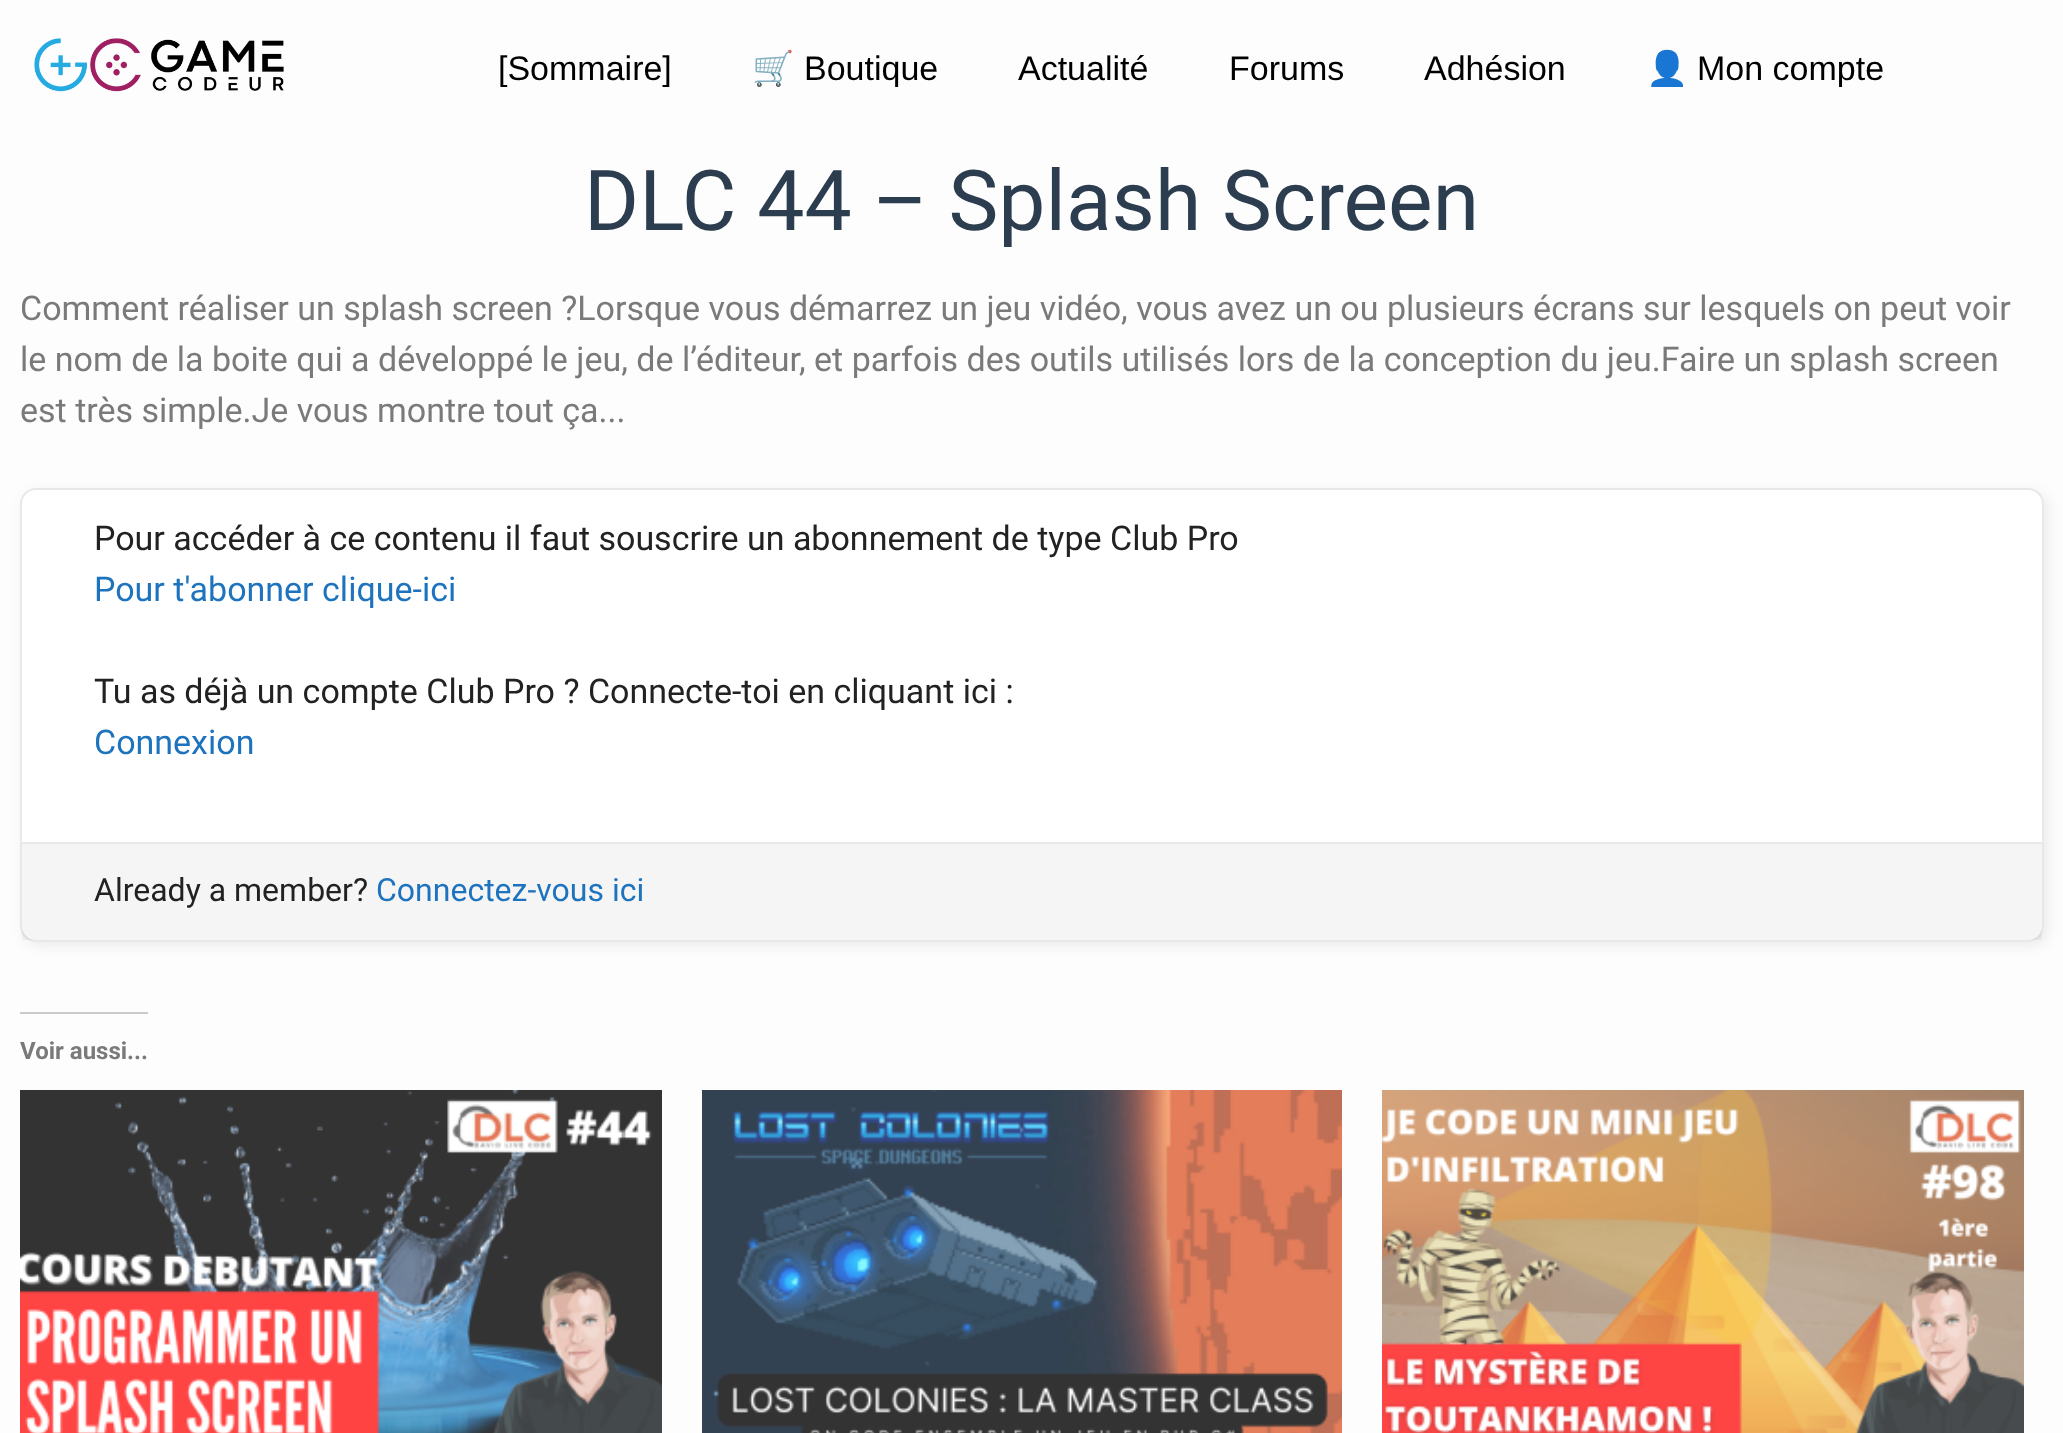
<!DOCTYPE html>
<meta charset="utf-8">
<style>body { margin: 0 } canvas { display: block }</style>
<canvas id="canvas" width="2063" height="1433"></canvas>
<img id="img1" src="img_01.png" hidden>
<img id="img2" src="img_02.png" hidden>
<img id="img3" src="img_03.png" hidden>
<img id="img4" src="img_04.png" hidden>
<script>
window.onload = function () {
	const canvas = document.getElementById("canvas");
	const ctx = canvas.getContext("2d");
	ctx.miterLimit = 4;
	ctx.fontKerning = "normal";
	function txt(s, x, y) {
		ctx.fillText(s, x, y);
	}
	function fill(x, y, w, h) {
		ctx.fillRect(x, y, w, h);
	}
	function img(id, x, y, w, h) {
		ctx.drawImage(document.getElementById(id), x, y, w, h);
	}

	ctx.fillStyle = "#FDFDFD";
	fill(0, 0, 2063, 1433);
	img("img1", 34, 38, 250, 54);
	ctx.fillStyle = "rgba(0, 0, 0, 0.07)";
	ctx.filter = "blur(7px)";
	ctx.beginPath();
	ctx.roundRect(24, 492, 2024, 454, 16);
	ctx.fill();
	ctx.filter = "none";
	ctx.fillStyle = "#FFFFFF";
	ctx.beginPath();
	ctx.roundRect(21, 489, 2022, 452, 15);
	ctx.fill();
	ctx.strokeStyle = "#E8E8E8";
	ctx.lineWidth = 2;
	ctx.stroke();
	ctx.fillStyle = "rgba(0, 0, 0, 0.04)";
	fill(22, 844, 2020, 96);
	ctx.fillStyle = "#E8E8E8";
	fill(22, 842, 2020, 2);
	ctx.fillStyle = "#CACACA";
	fill(20, 1012, 128, 2);
	img("img2", 20, 1090, 642, 343);
	img("img3", 702, 1090, 640, 343);
	img("img4", 1382, 1090, 642, 343);
	ctx.font = "34px Liberation Sans";
	ctx.fillStyle = "#000000";
	txt("[Sommaire]", 498, 80);
	ctx.font = "34px Noto Color Emoji";
	txt("🛒", 752, 80);
	ctx.font = "34px Liberation Sans";
	txt("Boutique", 804, 80);
	txt("Actualité", 1018, 80);
	txt("Forums", 1229, 80);
	txt("Adhésion", 1424, 80);
	ctx.font = "34px Noto Color Emoji";
	txt("👤", 1646, 80);
	ctx.font = "34px Liberation Sans";
	txt("Mon compte", 1697, 80);
	ctx.font = "84px Roboto";
	ctx.fillStyle = "#2C3D50";
	txt("DLC 44 – Splash Screen", 584, 230);
	ctx.font = "34px Roboto";
	ctx.fillStyle = "#7A7A7A";
	txt("Comment réaliser un splash screen ?Lorsque vous démarrez un jeu vidéo, vous avez un ou plusieurs écrans sur lesquels on peut voir", 20, 320);
	txt("le nom de la boite qui a développé le jeu, de l’éditeur, et parfois des outils utilisés lors de la conception du jeu.Faire un splash screen", 20, 371);
	txt("est très simple.Je vous montre tout ça...", 20, 422);
	ctx.fillStyle = "#222222";
	txt("Pour accéder à ce contenu il faut souscrire un abonnement de type Club Pro", 94, 550);
	ctx.fillStyle = "#1E73BE";
	txt("Pour t'abonner clique-ici", 94, 601);
	ctx.fillStyle = "#222222";
	txt("Tu as déjà un compte Club Pro ? Connecte-toi en cliquant ici :", 94, 703);
	ctx.fillStyle = "#1E73BE";
	txt("Connexion", 94, 754);
	ctx.font = "32px Roboto";
	ctx.fillStyle = "#222222";
	txt("Already a member?", 94, 901);
	ctx.fillStyle = "#1E73BE";
	txt("Connectez-vous ici", 376, 901);
	ctx.font = "bold 24px Roboto";
	ctx.fillStyle = "#7A7A7A";
	txt("Voir aussi...", 20, 1059);
};
</script>
